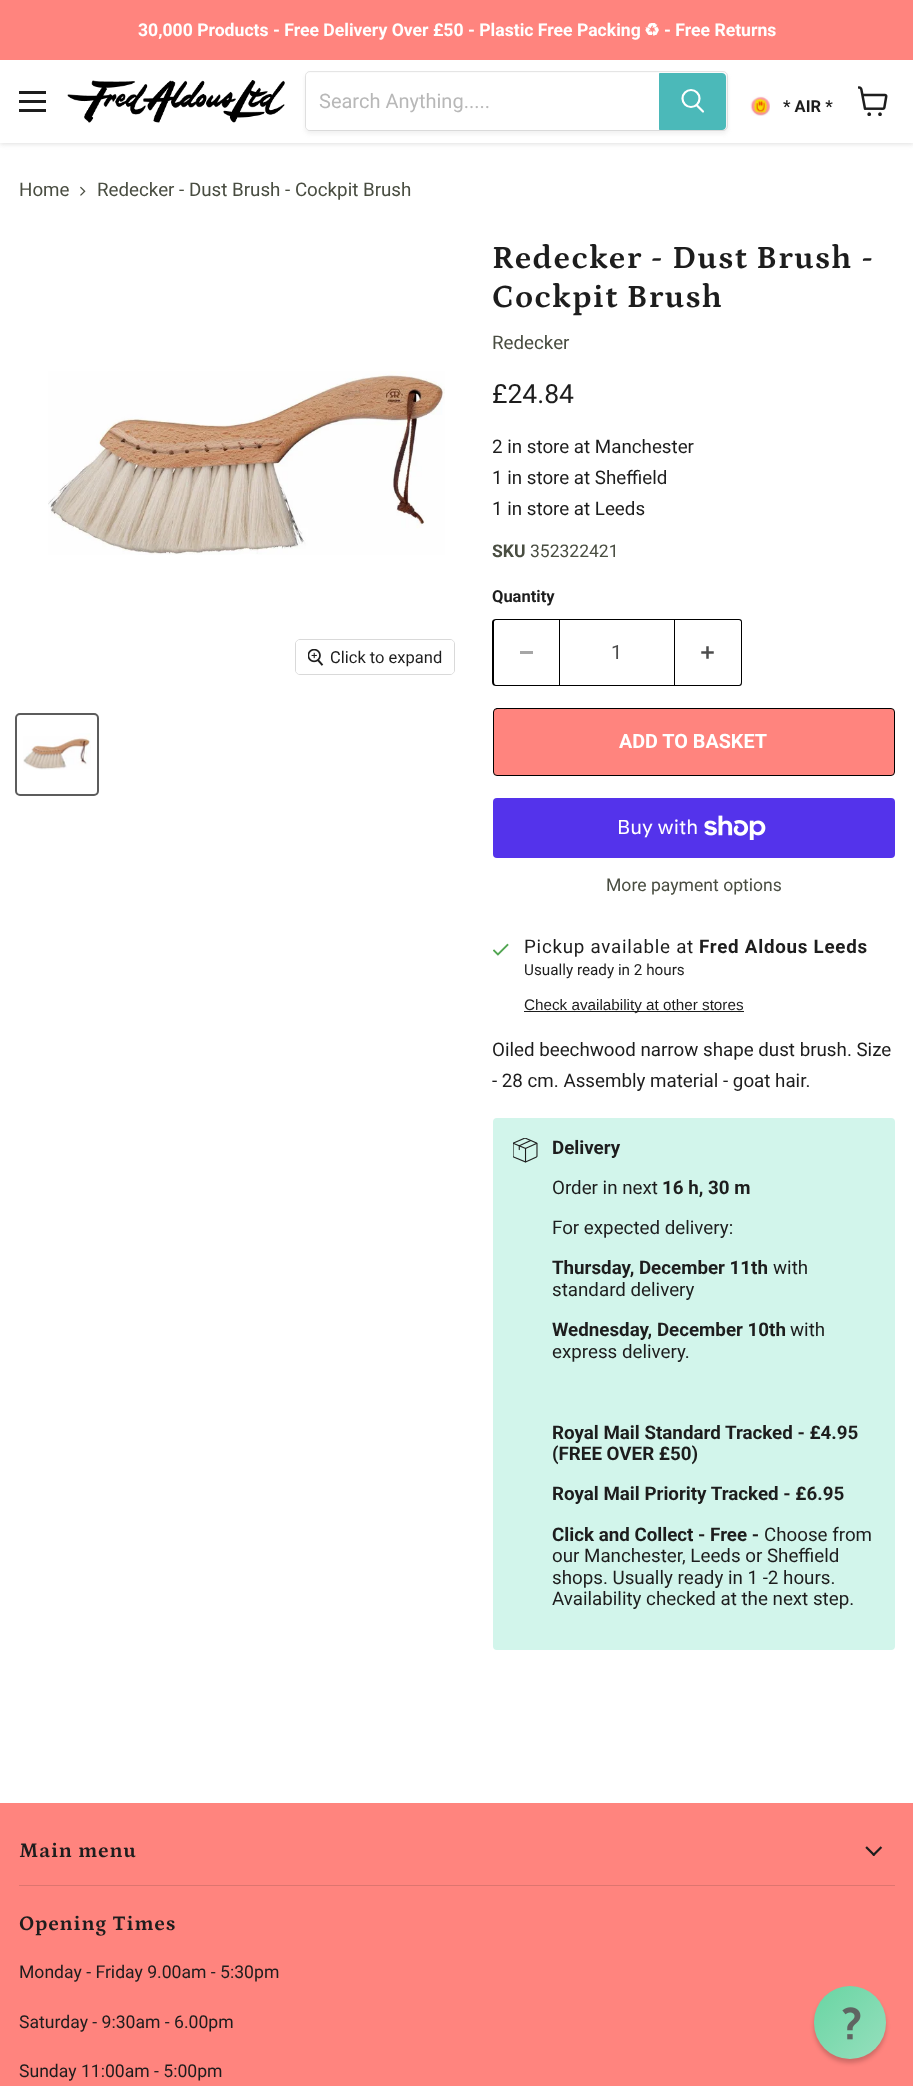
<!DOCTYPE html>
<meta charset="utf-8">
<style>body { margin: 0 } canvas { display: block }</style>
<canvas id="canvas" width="913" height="2086"></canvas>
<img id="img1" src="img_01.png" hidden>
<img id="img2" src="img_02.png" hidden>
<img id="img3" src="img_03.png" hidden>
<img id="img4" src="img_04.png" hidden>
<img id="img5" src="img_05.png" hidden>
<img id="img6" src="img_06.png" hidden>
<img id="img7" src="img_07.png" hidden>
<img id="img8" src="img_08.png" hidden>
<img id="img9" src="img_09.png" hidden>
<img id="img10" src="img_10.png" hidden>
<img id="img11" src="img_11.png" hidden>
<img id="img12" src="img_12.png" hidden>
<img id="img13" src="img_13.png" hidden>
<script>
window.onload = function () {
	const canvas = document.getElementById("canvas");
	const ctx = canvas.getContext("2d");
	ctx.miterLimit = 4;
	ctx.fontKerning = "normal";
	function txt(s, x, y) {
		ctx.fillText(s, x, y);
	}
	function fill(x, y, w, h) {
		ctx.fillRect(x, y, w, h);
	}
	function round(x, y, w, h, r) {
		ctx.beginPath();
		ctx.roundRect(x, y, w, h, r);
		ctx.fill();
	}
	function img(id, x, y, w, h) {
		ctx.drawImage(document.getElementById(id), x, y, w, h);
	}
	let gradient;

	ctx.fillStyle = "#FFFFFF";
	fill(0, 0, 913, 2086);
	ctx.fillStyle = "rgba(128, 128, 128, 0.25)";
	ctx.filter = "blur(2.5px)";
	ctx.beginPath();
	ctx.rect(0, 61, 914, 83);
	ctx.fill();
	ctx.filter = "none";
	ctx.fillStyle = "#FF847E";
	fill(0, 0, 913, 60);
	ctx.fillStyle = "#FFFFFF";
	fill(0, 60, 913, 83);
	ctx.fillStyle = "#1D1D1D";
	fill(19, 91, 27, 3);
	fill(19, 100, 27, 3);
	fill(19, 109, 27, 3);
	img("img1", 67, 80, 218, 43);
	ctx.fillStyle = "rgba(128, 128, 128, 0.11)";
	ctx.filter = "blur(2px)";
	ctx.beginPath();
	ctx.roundRect(305, 74, 423, 60, 5);
	ctx.fill();
	ctx.filter = "none";
	ctx.beginPath();
	ctx.roundRect(305.5, 71.5, 422, 59, 4.5);
	ctx.strokeStyle = "rgba(128, 128, 128, 0.2)";
	ctx.stroke();
	ctx.fillStyle = "#FFFFFF";
	ctx.beginPath();
	ctx.roundRect(306, 73, 353, 57, [4, 0, 0, 4]);
	ctx.fill();
	ctx.fillStyle = "#4BB9B9";
	ctx.beginPath();
	ctx.roundRect(659.5, 73.5, 66, 56, [0, 3.5, 3.5, 0]);
	ctx.fill();
	ctx.strokeStyle = "#4BB9B9";
	ctx.stroke();
	ctx.beginPath();
	ctx.moveTo(703, 111.5);
	ctx.lineTo(697, 105.5);
	ctx.strokeStyle = "#FFFFFF";
	ctx.lineWidth = 2.2;
	ctx.lineCap = "round";
	ctx.stroke();
	ctx.beginPath();
	ctx.arc(691, 98.5, 8.5, 0, Math.PI * 2);
	ctx.stroke();
	img("img2", 750, 96, 20, 20);
	img("img3", 858, 86, 30, 30);
	img("img4", 80, 186, 6, 10);
	img("img5", 48, 371, 397, 184);
	ctx.beginPath();
	ctx.roundRect(295.5, 639.5, 159, 35, 4.5);
	ctx.strokeStyle = "#D9D9D9";
	ctx.lineWidth = 1;
	ctx.stroke();
	ctx.fillStyle = "rgba(255, 255, 255, 0.9)";
	round(296, 640, 158, 34, 4);
	img("img6", 308, 649, 16, 17);
	ctx.beginPath();
	ctx.roundRect(16, 714, 82, 81, 4);
	ctx.strokeStyle = "#5C5C5C";
	ctx.lineWidth = 2;
	ctx.stroke();
	img("img7", 23, 733, 68, 37);
	ctx.fillStyle = "#000000";
	ctx.beginPath();
	ctx.moveTo(496, 619);
	ctx.lineTo(559, 619);
	ctx.lineTo(559, 686);
	ctx.lineTo(496, 686);
	ctx.bezierCurveTo(494, 686, 492, 685, 492, 682);
	ctx.lineTo(492, 622);
	ctx.bezierCurveTo(492, 620, 494, 619, 496, 619);
	ctx.closePath();
	ctx.moveTo(496, 620);
	ctx.lineTo(559, 620);
	ctx.lineTo(559, 685);
	ctx.lineTo(496, 685);
	ctx.bezierCurveTo(495, 685, 494, 684, 494, 682);
	ctx.lineTo(494, 622);
	ctx.bezierCurveTo(494, 621, 495, 620, 496, 620);
	ctx.closePath();
	ctx.fill("evenodd");
	ctx.fillStyle = "#A6A6A6";
	fill(520, 651, 13, 3);
	ctx.strokeStyle = "#000000";
	ctx.lineWidth = 1;
	ctx.strokeRect(559.5, 619.5, 115, 66);
	ctx.fillStyle = "#000000";
	ctx.beginPath();
	ctx.moveTo(675, 619);
	ctx.lineTo(739, 619);
	ctx.bezierCurveTo(741, 619, 742, 620, 742, 622);
	ctx.lineTo(742, 682);
	ctx.bezierCurveTo(742, 685, 741, 686, 739, 686);
	ctx.lineTo(675, 686);
	ctx.closePath();
	ctx.moveTo(675, 620);
	ctx.lineTo(739, 620);
	ctx.bezierCurveTo(740, 620, 741, 621, 741, 622);
	ctx.lineTo(741, 682);
	ctx.bezierCurveTo(741, 684, 740, 685, 739, 685);
	ctx.lineTo(675, 685);
	ctx.closePath();
	ctx.fill("evenodd");
	img("img8", 701, 646, 13, 13);
	ctx.fillStyle = "#FF847E";
	ctx.beginPath();
	ctx.roundRect(493.5, 708.5, 401, 67, 3.5);
	ctx.fill();
	ctx.stroke();
	ctx.fillStyle = "#5433EB";
	round(493, 798, 402, 60, 4);
	img("img9", 704, 815, 62, 25);
	img("img10", 493, 943, 16, 13);
	ctx.fillStyle = "#1D1D1D";
	fill(524, 1011, 220, 1);
	ctx.fillStyle = "#D2F5EB";
	round(493, 1118, 402, 532, 4);
	img("img11", 513, 1138, 25, 25);
	ctx.fillStyle = "#FF847E";
	fill(0, 1803, 913, 283);
	ctx.fillStyle = "#DD756F";
	fill(19, 1885, 876, 1);
	img("img12", 865, 1846, 18, 10);
	ctx.fillStyle = "rgba(13, 7, 6, 0.2)";
	ctx.filter = "blur(2px)";
	ctx.beginPath();
	ctx.roundRect(814, 1990, 72, 73, 36);
	ctx.fill();
	ctx.filter = "none";
	gradient = ctx.createLinearGradient(814, 1986, 886, 2059);
	gradient.addColorStop(0, "#69D5A3");
	gradient.addColorStop(1, "#96DFBD");
	ctx.fillStyle = gradient;
	round(814, 1986, 72, 73, 36);
	img("img13", 842, 2007, 19, 33);
	ctx.font = "bold 17.6px Roboto";
	ctx.fillStyle = "#FFFFFF";
	txt("30,000 Products - Free Delivery Over £50 - Plastic Free Packing", 138, 36);
	ctx.font = "bold 17.6px DejaVu Sans";
	txt("♻︎", 644, 36);
	ctx.font = "bold 17.6px Roboto";
	txt("- Free Returns", 664, 36);
	ctx.font = "20px Roboto";
	ctx.fillStyle = "#B8B8B8";
	txt("Search Anything.....", 319, 108);
	ctx.font = "bold 16.5px Roboto";
	ctx.fillStyle = "#1D1D1D";
	txt("* AIR *", 783, 112);
	ctx.font = "18.75px Roboto";
	ctx.fillStyle = "#494D41";
	txt("Home", 19, 196);
	txt("Redecker - Dust Brush - Cockpit Brush", 97, 196);
	ctx.font = "16.5px Roboto";
	ctx.fillStyle = "#1D1D1D";
	txt("Click to expand", 330, 663);
	ctx.letterSpacing = "1.3px";
	ctx.font = "bold 32.75px Petrona";
	txt("Redecker - Dust Brush -", 492, 268);
	txt("Cockpit Brush", 492, 307);
	ctx.letterSpacing = "0px";
	ctx.font = "18.75px Roboto";
	ctx.fillStyle = "#494D41";
	txt("Redecker", 492, 349);
	ctx.font = "26.5px Roboto";
	ctx.fillStyle = "#1D1D1D";
	txt("£24.84", 492, 403);
	ctx.font = "18.75px Roboto";
	txt("2 in store at Manchester", 492, 453);
	txt("1 in store at Sheffield", 492, 484);
	txt("1 in store at Leeds", 492, 515);
	ctx.font = "bold 17.5px Roboto";
	ctx.fillStyle = "#494D41";
	txt("SKU", 492, 557);
	ctx.font = "17.5px Roboto";
	txt("352322421", 530, 557);
	ctx.font = "bold 16.5px Roboto";
	ctx.fillStyle = "#1D1D1D";
	txt("Quantity", 492, 602);
	ctx.font = "19.75px Roboto";
	ctx.fillStyle = "#4D4D4D";
	txt("1", 611, 659);
	ctx.font = "bold 19.75px Roboto";
	ctx.fillStyle = "#FFFFFF";
	txt("ADD TO BASKET", 619, 748);
	ctx.font = "20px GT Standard";
	txt("Buy with", 617, 834);
	ctx.font = "17.6px Roboto";
	ctx.fillStyle = "#494D41";
	txt("More payment options", 606, 891);
	ctx.letterSpacing = "0.75px";
	ctx.font = "18.75px Roboto";
	ctx.fillStyle = "#1D1D1D";
	txt("Pickup available at", 524, 953);
	ctx.font = "bold 18.75px Roboto";
	txt("Fred Aldous Leeds", 699, 953);
	ctx.letterSpacing = "0px";
	ctx.font = "15.25px Roboto";
	txt("Usually ready in 2 hours", 524, 975);
	ctx.font = "15.25px Liberation Sans";
	txt("Check availability at other stores", 524, 1010);
	ctx.font = "18.75px Roboto";
	txt("Oiled beechwood narrow shape dust brush. Size", 492, 1056);
	txt("- 28 cm. Assembly material - goat hair.", 492, 1087);
	ctx.font = "bold 18.75px Roboto";
	txt("Delivery", 552, 1154);
	ctx.font = "18.75px Roboto";
	txt("Order in next", 552, 1194);
	ctx.font = "bold 18.75px Roboto";
	txt("16 h, 30 m", 662, 1194);
	ctx.font = "18.75px Roboto";
	txt("For expected delivery:", 552, 1234);
	ctx.font = "bold 18.75px Roboto";
	txt("Thursday, December 11th", 552, 1274);
	ctx.font = "18.75px Roboto";
	txt("with", 773, 1274);
	txt("standard delivery", 552, 1296);
	ctx.font = "bold 18.75px Roboto";
	txt("Wednesday, December 10th", 552, 1336);
	ctx.font = "18.75px Roboto";
	txt("with", 790, 1336);
	txt("express delivery.", 552, 1358);
	ctx.font = "bold 18.75px Roboto";
	txt("Royal Mail Standard Tracked - £4.95", 552, 1439);
	txt("(FREE OVER £50)", 552, 1460);
	txt("Royal Mail Priority Tracked - £6.95", 552, 1500);
	txt("Click and Collect - Free -", 552, 1541);
	ctx.font = "18.75px Roboto";
	txt("Choose from", 764, 1541);
	txt("our Manchester, Leeds or Sheffield", 552, 1562);
	txt("shops. Usually ready in 1 -2 hours.", 552, 1584);
	txt("Availability checked at the next step.", 552, 1605);
	ctx.letterSpacing = "0.8px";
	ctx.font = "bold 21px Petrona";
	txt("Main menu", 19, 1857);
	txt("Opening Times", 19, 1930);
	ctx.letterSpacing = "0px";
	ctx.font = "17.6px Roboto";
	txt("Monday - Friday 9.00am - 5:30pm", 19, 1978);
	txt("Saturday - 9:30am - 6.00pm", 19, 2028);
	txt("Sunday 11:00am - 5:00pm", 19, 2077);
};
</script>
